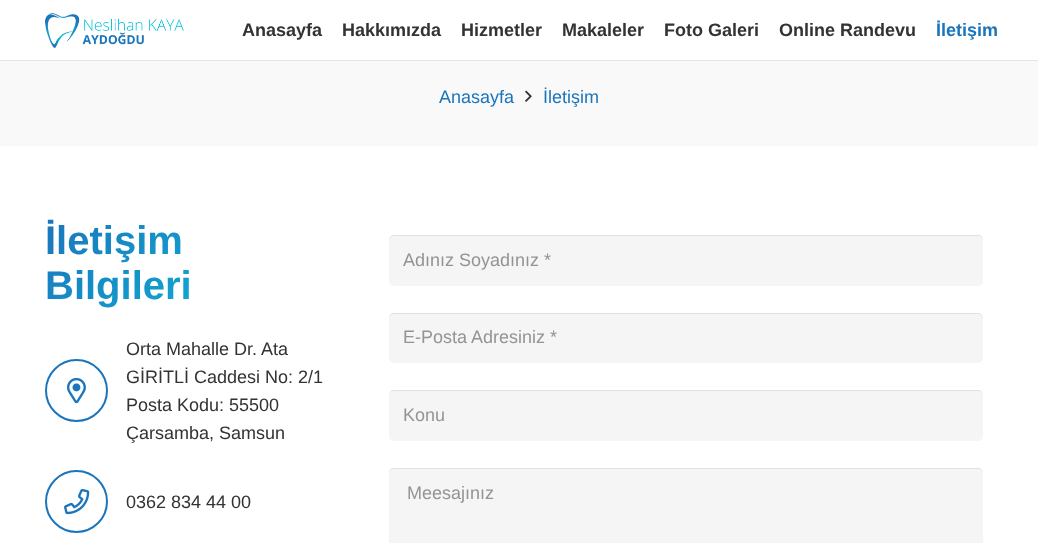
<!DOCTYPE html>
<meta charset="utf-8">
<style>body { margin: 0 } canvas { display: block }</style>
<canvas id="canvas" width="1038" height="543"></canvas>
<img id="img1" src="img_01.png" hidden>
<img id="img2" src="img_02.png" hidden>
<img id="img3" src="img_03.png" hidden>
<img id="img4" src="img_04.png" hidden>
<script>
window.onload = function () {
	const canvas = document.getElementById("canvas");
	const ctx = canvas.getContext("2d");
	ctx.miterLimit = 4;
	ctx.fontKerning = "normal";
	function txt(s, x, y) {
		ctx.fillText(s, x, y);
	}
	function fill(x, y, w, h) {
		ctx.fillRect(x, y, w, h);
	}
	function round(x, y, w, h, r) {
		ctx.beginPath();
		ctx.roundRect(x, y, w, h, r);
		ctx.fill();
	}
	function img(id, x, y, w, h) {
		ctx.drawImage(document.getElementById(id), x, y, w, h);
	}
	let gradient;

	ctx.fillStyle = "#FFFFFF";
	fill(0, 0, 1038, 543);
	ctx.fillStyle = "#F9F9F9";
	fill(0, 60, 1038, 86);
	ctx.fillStyle = "rgba(0, 0, 0, 0.08)";
	fill(0, 60, 1038, 1);
	img("img1", 45, 13, 139, 35);
	img("img2", 525, 90, 7, 12);
	ctx.beginPath();
	ctx.arc(76.5, 390.5, 30.5, 0, Math.PI * 2);
	ctx.strokeStyle = "#1B75BC";
	ctx.lineWidth = 2;
	ctx.stroke();
	img("img3", 67, 377, 19, 27);
	ctx.beginPath();
	ctx.arc(76.5, 501.5, 30.5, 0, Math.PI * 2);
	ctx.stroke();
	img("img4", 64, 488, 26, 27);
	ctx.fillStyle = "#F5F5F5";
	round(389, 235, 594, 51, 5);
	ctx.fillStyle = "rgba(0, 0, 0, 0.08)";
	ctx.beginPath();
	ctx.moveTo(394, 236);
	ctx.lineTo(978, 236);
	ctx.bezierCurveTo(981, 236, 983, 238, 983, 241);
	ctx.lineTo(983, 240);
	ctx.bezierCurveTo(983, 237, 981, 235, 978, 235);
	ctx.lineTo(394, 235);
	ctx.bezierCurveTo(391, 235, 389, 237, 389, 240);
	ctx.lineTo(389, 241);
	ctx.bezierCurveTo(389, 238, 391, 236, 394, 236);
	ctx.closePath();
	ctx.fill();
	ctx.fillStyle = "#F5F5F5";
	round(389, 313, 594, 50, 5);
	ctx.fillStyle = "rgba(0, 0, 0, 0.08)";
	ctx.beginPath();
	ctx.moveTo(394, 314);
	ctx.lineTo(978, 314);
	ctx.bezierCurveTo(981, 314, 983, 316, 983, 319);
	ctx.lineTo(983, 318);
	ctx.bezierCurveTo(983, 315, 981, 313, 978, 313);
	ctx.lineTo(394, 313);
	ctx.bezierCurveTo(391, 313, 389, 315, 389, 318);
	ctx.lineTo(389, 319);
	ctx.bezierCurveTo(389, 316, 391, 314, 394, 314);
	ctx.closePath();
	ctx.fill();
	ctx.fillStyle = "#F5F5F5";
	round(389, 390, 594, 51, 5);
	ctx.fillStyle = "rgba(0, 0, 0, 0.08)";
	ctx.beginPath();
	ctx.moveTo(394, 391);
	ctx.lineTo(978, 391);
	ctx.bezierCurveTo(981, 391, 983, 393, 983, 396);
	ctx.lineTo(983, 395);
	ctx.bezierCurveTo(983, 392, 981, 390, 978, 390);
	ctx.lineTo(394, 390);
	ctx.bezierCurveTo(391, 390, 389, 392, 389, 395);
	ctx.lineTo(389, 396);
	ctx.bezierCurveTo(389, 393, 391, 391, 394, 391);
	ctx.closePath();
	ctx.fill();
	ctx.fillStyle = "#F5F5F5";
	round(389, 468, 594, 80, 5);
	ctx.fillStyle = "rgba(0, 0, 0, 0.08)";
	ctx.beginPath();
	ctx.moveTo(394, 469);
	ctx.lineTo(978, 469);
	ctx.bezierCurveTo(981, 469, 983, 471, 983, 474);
	ctx.lineTo(983, 473);
	ctx.bezierCurveTo(983, 470, 981, 468, 978, 468);
	ctx.lineTo(394, 468);
	ctx.bezierCurveTo(391, 468, 389, 470, 389, 473);
	ctx.lineTo(389, 474);
	ctx.bezierCurveTo(389, 471, 391, 469, 394, 469);
	ctx.closePath();
	ctx.fill();
	ctx.font = "bold 18px Liberation Sans";
	ctx.fillStyle = "#333333";
	txt("Anasayfa", 242, 36);
	txt("Hakkımızda", 342, 36);
	txt("Hizmetler", 461, 36);
	txt("Makaleler", 562, 36);
	txt("Foto Galeri", 664, 36);
	txt("Online Randevu", 779, 36);
	ctx.fillStyle = "#1B75BC";
	txt("İletişim", 936, 36);
	ctx.font = "18px Liberation Sans";
	txt("Anasayfa", 439, 103);
	txt("İletişim", 543, 103);
	ctx.font = "bold 40px Liberation Sans";
	gradient = ctx.createLinearGradient(92, 170, 277, 355);
	gradient.addColorStop(0, "#1B75BC");
	gradient.addColorStop(1, "#0BC1DB");
	ctx.fillStyle = gradient;
	txt("İletişim", 45, 254);
	txt("Bilgileri", 45, 299);
	ctx.font = "18px Liberation Sans";
	ctx.fillStyle = "#333333";
	txt("Orta Mahalle Dr. Ata", 126, 355);
	txt("GİRİTLİ Caddesi No: 2/1", 126, 383);
	txt("Posta Kodu: 55500", 126, 411);
	txt("Çarsamba, Samsun", 126, 439);
	txt("0362 834 44 00", 126, 508);
	ctx.fillStyle = "#949494";
	txt("Adınız Soyadınız *", 403, 266);
	txt("E-Posta Adresiniz *", 403, 343);
	txt("Konu", 403, 421);
	txt("Meesajınız", 407, 499);
};
</script>
